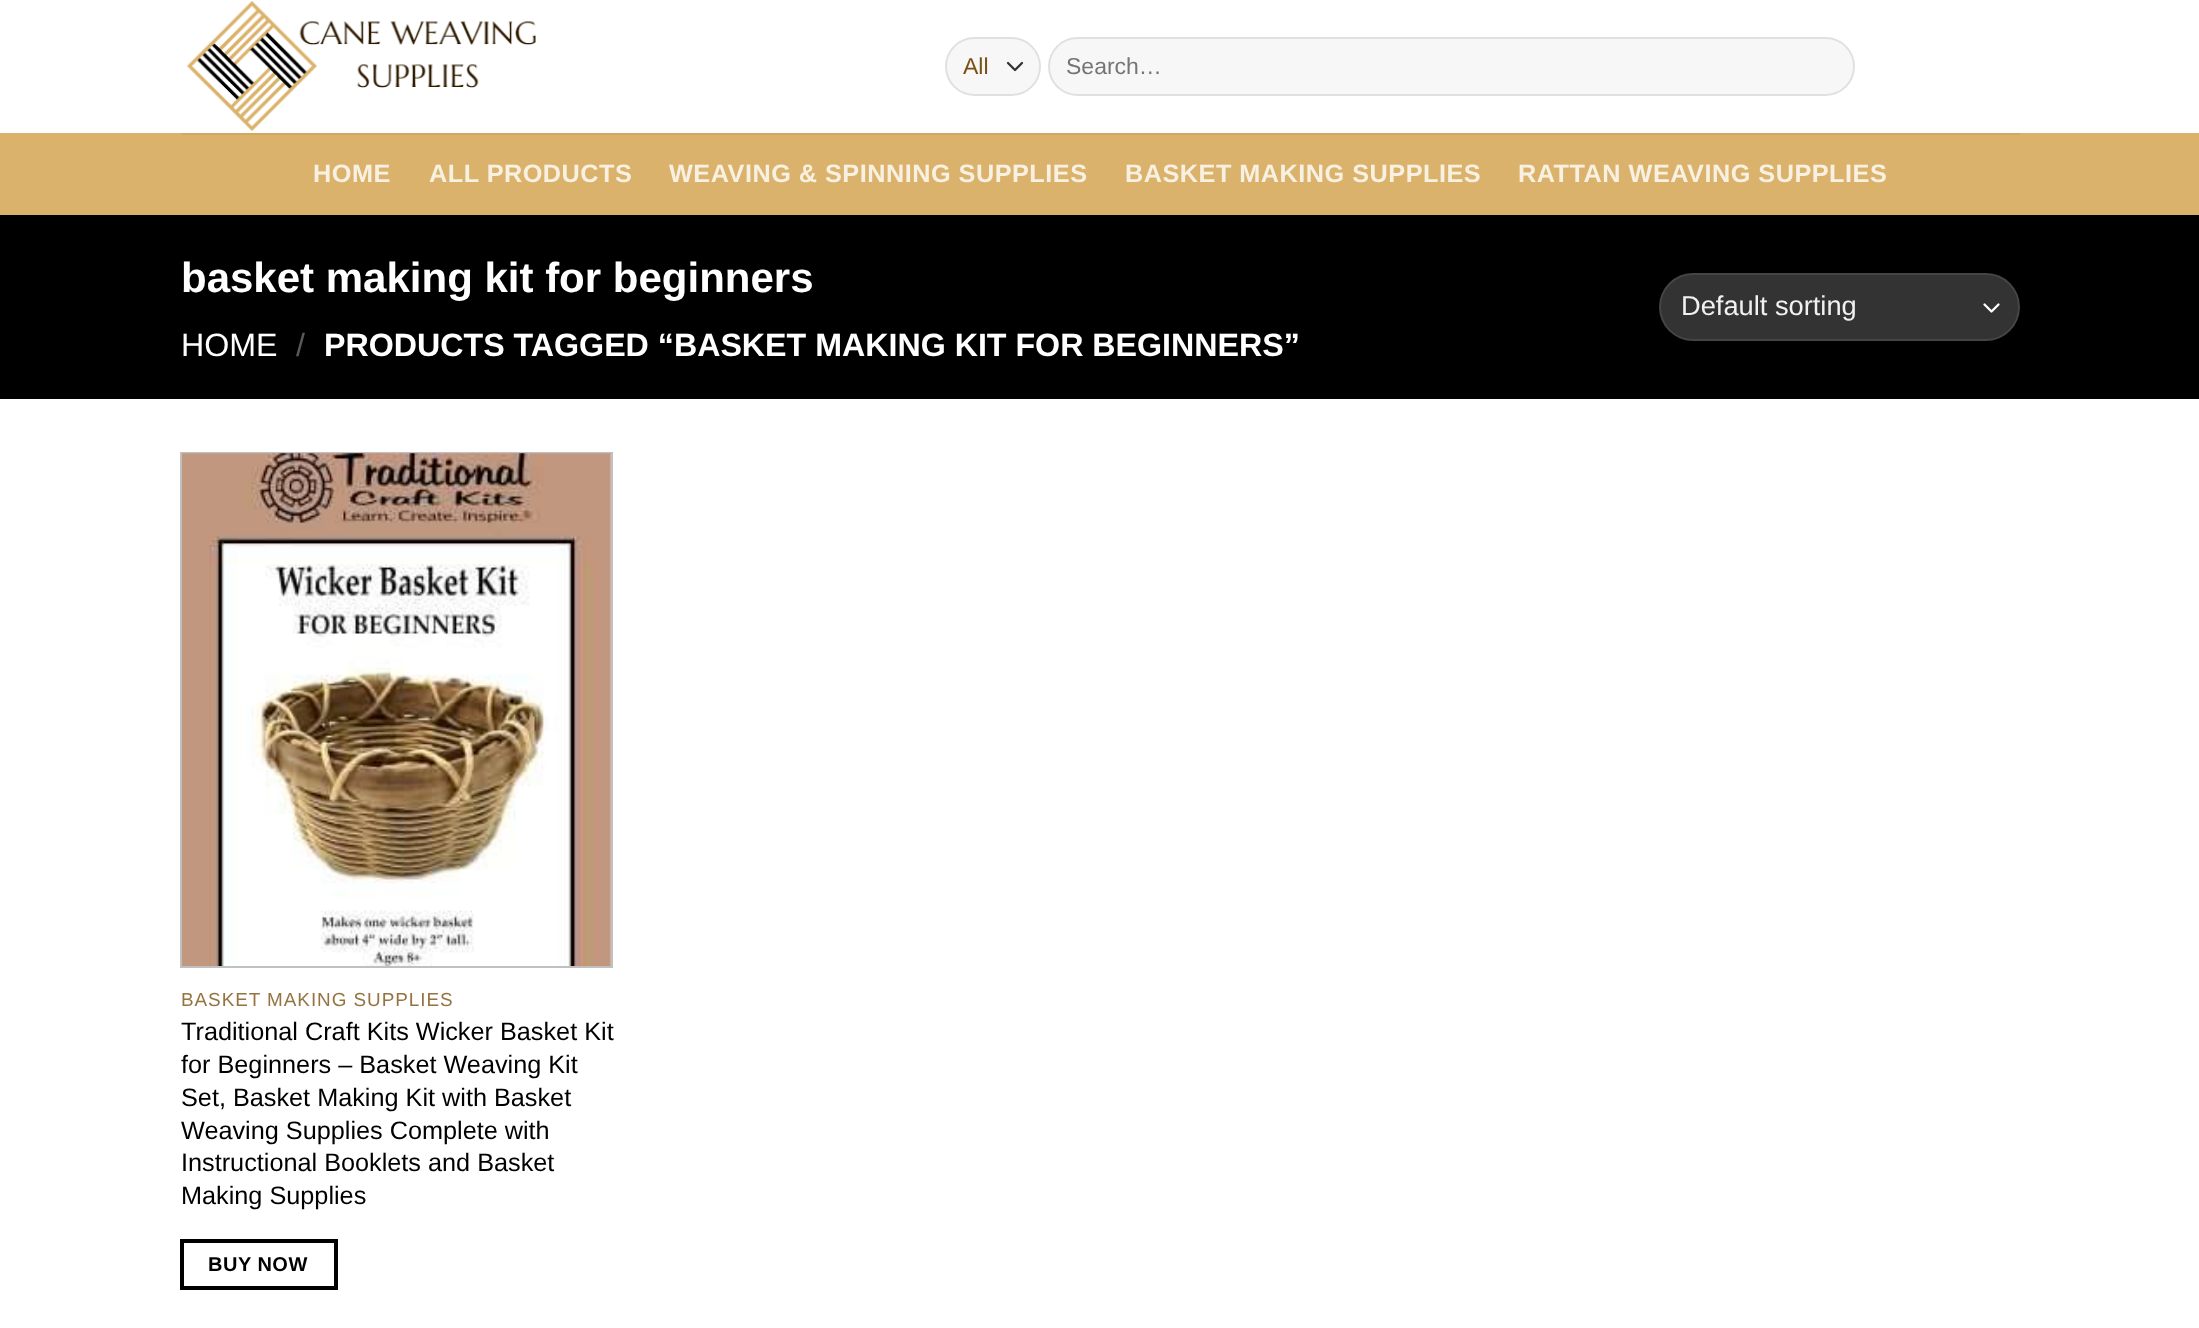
<!DOCTYPE html>
<meta charset="utf-8">
<style>body { margin: 0 } canvas { display: block }</style>
<canvas id="canvas" width="2199" height="1328"></canvas>
<img id="img1" src="img_01.png" hidden>
<img id="img2" src="img_02.png" hidden>
<script>
window.onload = function () {
	const canvas = document.getElementById("canvas");
	const ctx = canvas.getContext("2d");
	ctx.miterLimit = 4;
	ctx.fontKerning = "normal";
	function txt(s, x, y) {
		ctx.fillText(s, x, y);
	}
	function fill(x, y, w, h) {
		ctx.fillRect(x, y, w, h);
	}
	function round(x, y, w, h, r) {
		ctx.beginPath();
		ctx.roundRect(x, y, w, h, r);
		ctx.fill();
	}
	function img(id, x, y, w, h) {
		ctx.drawImage(document.getElementById(id), x, y, w, h);
	}

	ctx.fillStyle = "#FFFFFF";
	fill(0, 0, 2199, 1328);
	img("img1", 187, 1, 349, 130);
	ctx.fillStyle = "#F7F7F7";
	round(945, 37, 96, 59, 29.5);
	ctx.beginPath();
	ctx.moveTo(1008, 63);
	ctx.lineTo(1015, 70);
	ctx.lineTo(1022, 63);
	ctx.strokeStyle = "#333333";
	ctx.lineWidth = 2.3;
	ctx.lineCap = "round";
	ctx.lineJoin = "round";
	ctx.stroke();
	ctx.beginPath();
	ctx.roundRect(946, 38, 94, 57, 28.5);
	ctx.strokeStyle = "rgba(0, 0, 0, 0.09)";
	ctx.lineWidth = 2;
	ctx.lineJoin = "miter";
	ctx.stroke();
	round(1048, 37, 807, 59, 29.5);
	ctx.beginPath();
	ctx.roundRect(1049, 38, 805, 57, 28.5);
	ctx.stroke();
	ctx.fillStyle = "#DBB26B";
	fill(0, 133, 2199, 82);
	ctx.fillStyle = "#D1A862";
	fill(182, 133, 1838, 2);
	ctx.fillStyle = "#000000";
	fill(0, 215, 2199, 184);
	ctx.fillStyle = "#333333";
	round(1659, 273, 361, 68, 34);
	ctx.beginPath();
	ctx.moveTo(1984.5, 304.5);
	ctx.lineTo(1991.5, 311.5);
	ctx.lineTo(1998.5, 304.5);
	ctx.strokeStyle = "#FFFFFF";
	ctx.lineWidth = 2.3;
	ctx.lineJoin = "round";
	ctx.stroke();
	ctx.beginPath();
	ctx.roundRect(1660, 274, 359, 66, 33);
	ctx.strokeStyle = "rgba(255, 255, 255, 0.09)";
	ctx.lineWidth = 2;
	ctx.lineJoin = "miter";
	ctx.stroke();
	ctx.strokeStyle = "#C0C0C0";
	ctx.strokeRect(181, 453, 431, 514);
	img("img2", 182, 453, 429, 513);
	ctx.strokeStyle = "#000000";
	ctx.lineWidth = 4;
	ctx.strokeRect(182, 1241, 154, 47);
	ctx.font = "23px Liberation Sans";
	ctx.fillStyle = "#7A5113";
	txt("All", 963, 74);
	ctx.fillStyle = "#757575";
	txt("Search…", 1066, 74);
	ctx.letterSpacing = "0.5px";
	ctx.font = "bold 25.25px Liberation Sans";
	ctx.fillStyle = "#F8F0E1";
	txt("HOME", 313, 182);
	txt("ALL PRODUCTS", 429, 182);
	txt("WEAVING & SPINNING SUPPLIES", 669, 182);
	txt("BASKET MAKING SUPPLIES", 1125, 182);
	txt("RATTAN WEAVING SUPPLIES", 1518, 182);
	ctx.letterSpacing = "0px";
	ctx.font = "bold 42px Liberation Sans";
	ctx.fillStyle = "#FFFFFF";
	txt("basket making kit for beginners", 181, 292);
	ctx.font = "32.2px Liberation Sans";
	txt("HOME", 181, 356);
	ctx.fillStyle = "#595959";
	txt("/", 296, 356);
	ctx.font = "bold 32.2px Liberation Sans";
	ctx.fillStyle = "#FFFFFF";
	txt("PRODUCTS TAGGED “BASKET MAKING KIT FOR BEGINNERS”", 324, 356);
	ctx.font = "27.25px Liberation Sans";
	ctx.fillStyle = "#F1F1F1";
	txt("Default sorting", 1681, 315);
	ctx.letterSpacing = "0.95px";
	ctx.font = "18.9px Liberation Sans";
	ctx.fillStyle = "#957442";
	txt("BASKET MAKING SUPPLIES", 181, 1006);
	ctx.letterSpacing = "0px";
	ctx.font = "25.25px Liberation Sans";
	ctx.fillStyle = "#000000";
	txt("Traditional Craft Kits Wicker Basket Kit", 181, 1040);
	txt("for Beginners – Basket Weaving Kit", 181, 1073);
	txt("Set, Basket Making Kit with Basket", 181, 1106);
	txt("Weaving Supplies Complete with", 181, 1139);
	txt("Instructional Booklets and Basket", 181, 1171);
	txt("Making Supplies", 181, 1204);
	ctx.letterSpacing = "0.5px";
	ctx.font = "bold 20px Liberation Sans";
	txt("BUY NOW", 208, 1271);
};
</script>
